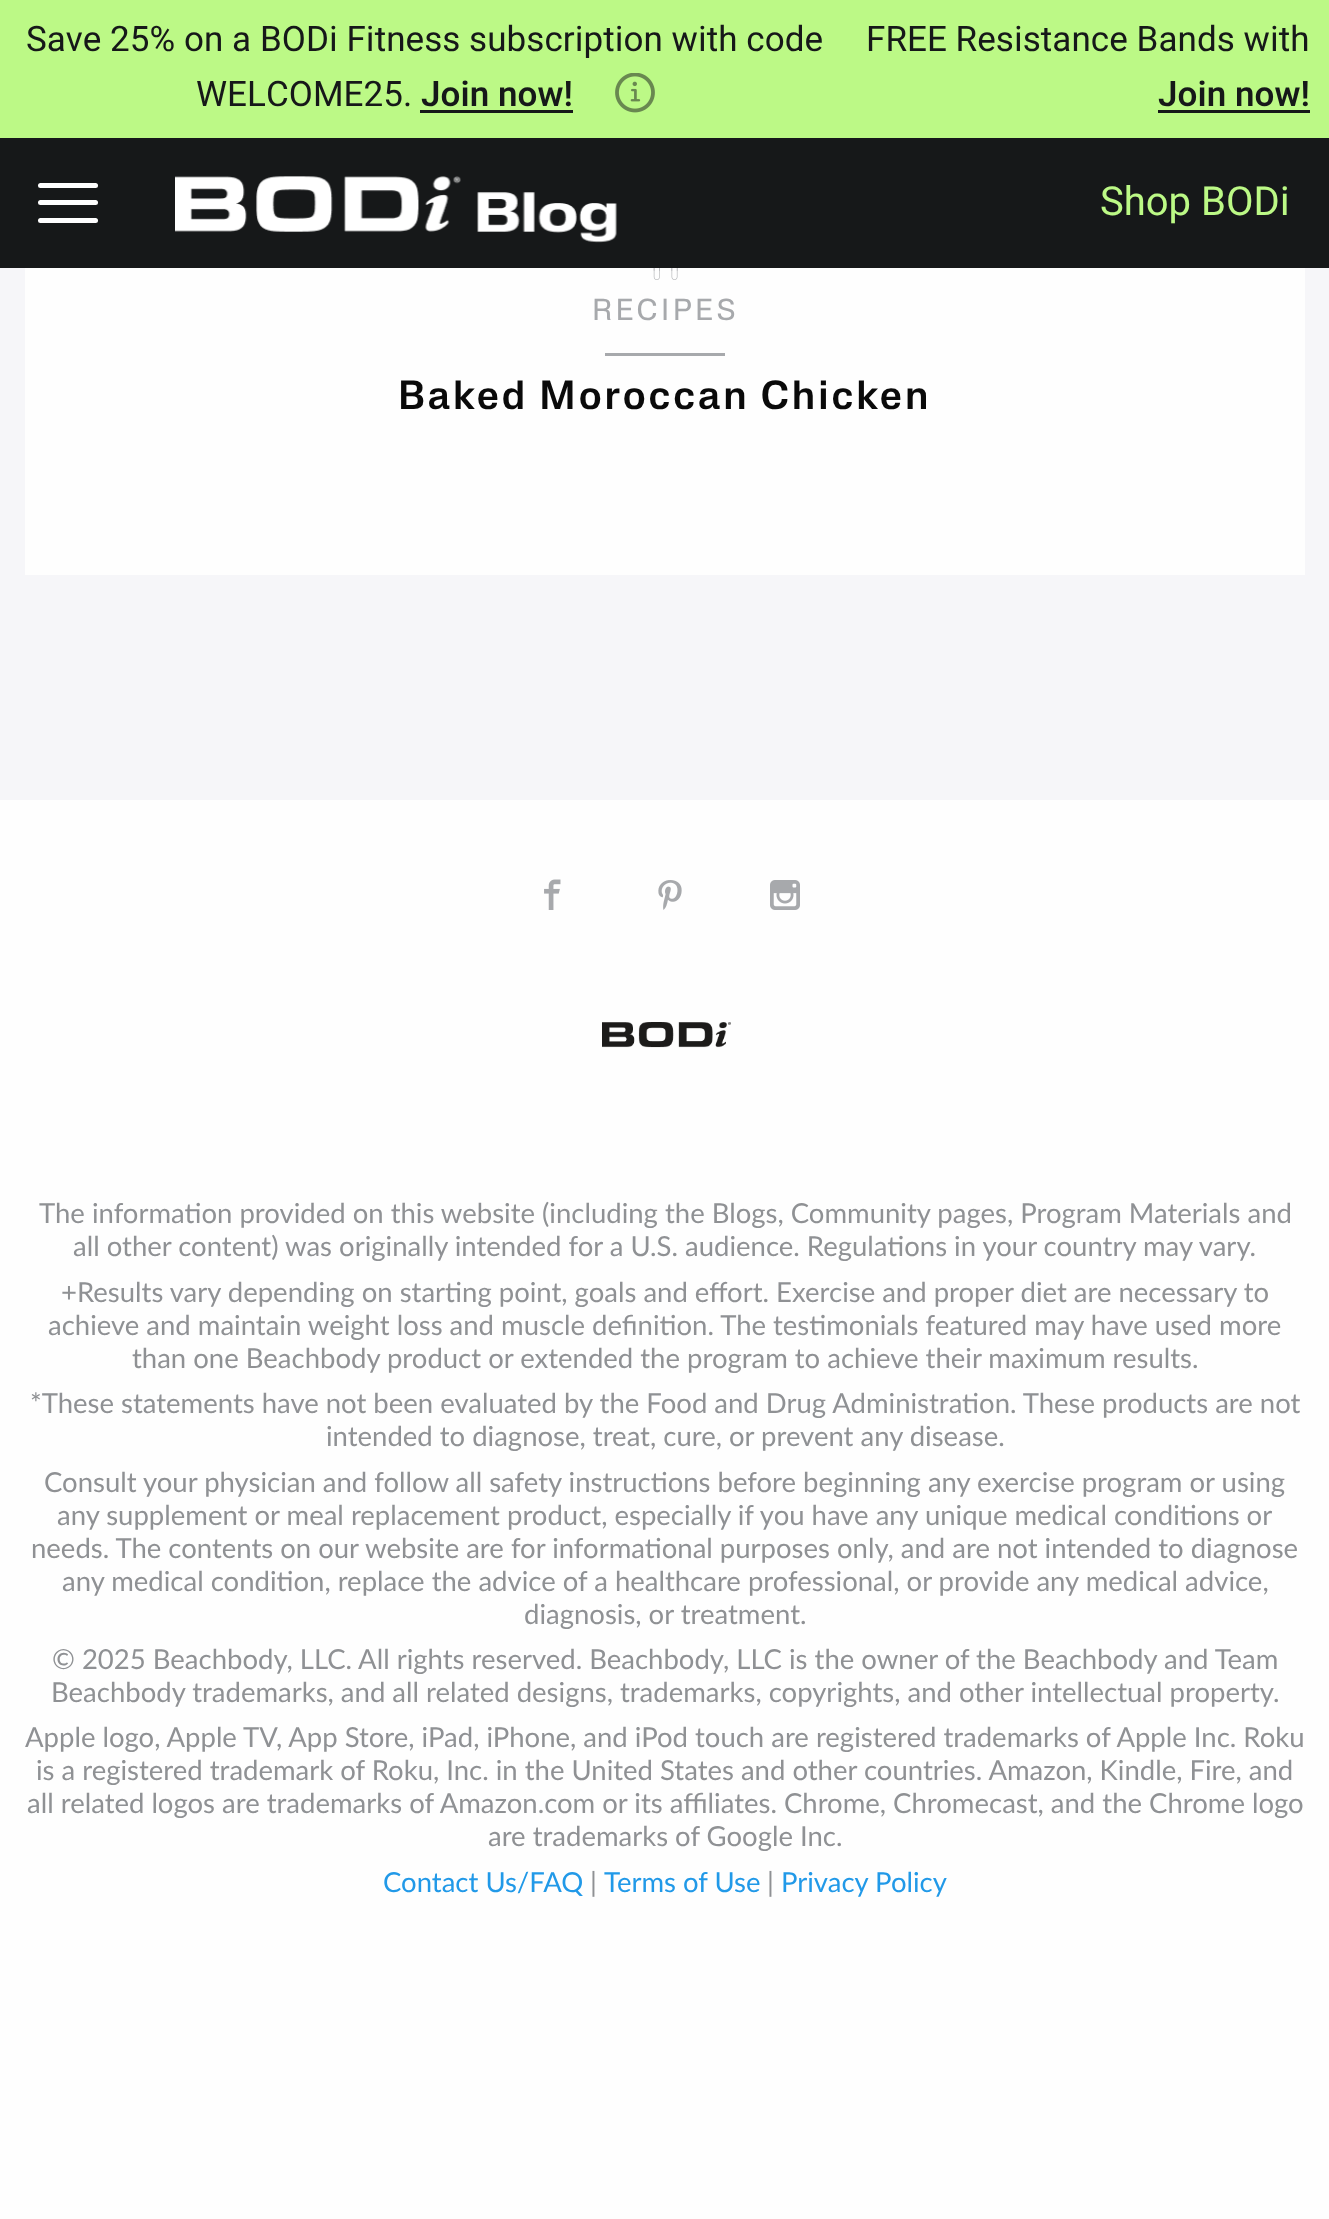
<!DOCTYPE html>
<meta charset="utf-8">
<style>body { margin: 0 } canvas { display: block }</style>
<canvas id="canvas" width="1329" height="2219"></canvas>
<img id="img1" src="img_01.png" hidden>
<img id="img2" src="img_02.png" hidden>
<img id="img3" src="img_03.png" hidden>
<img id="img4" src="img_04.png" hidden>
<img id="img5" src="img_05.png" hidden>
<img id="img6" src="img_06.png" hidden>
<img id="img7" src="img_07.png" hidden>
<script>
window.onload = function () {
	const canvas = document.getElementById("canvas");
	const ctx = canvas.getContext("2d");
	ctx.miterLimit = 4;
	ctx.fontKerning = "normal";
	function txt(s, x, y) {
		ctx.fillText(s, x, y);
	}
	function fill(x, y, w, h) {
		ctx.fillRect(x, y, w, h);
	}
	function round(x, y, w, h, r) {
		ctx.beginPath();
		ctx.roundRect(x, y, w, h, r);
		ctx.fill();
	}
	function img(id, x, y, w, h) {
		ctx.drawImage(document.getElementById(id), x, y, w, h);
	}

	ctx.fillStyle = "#F6F6F9";
	fill(0, 0, 1329, 2219);
	ctx.fillStyle = "#BCF986";
	fill(0, 0, 1329, 138);
	ctx.fillStyle = "#161819";
	fill(420, 110, 153, 3);
	img("img1", 615, 73, 40, 40);
	fill(1158, 110, 152, 3);
	fill(0, 138, 1329, 130);
	ctx.fillStyle = "#FEFEFE";
	round(38, 200, 60, 5, 2.5);
	round(38, 183, 60, 5, 2.5);
	round(38, 218, 60, 5, 2.5);
	img("img2", 175, 176, 442, 67);
	fill(25, 268, 1280, 307);
	img("img3", 653, 268, 25, 12);
	ctx.fillStyle = "#A7A9AC";
	fill(605, 353, 120, 3);
	ctx.fillStyle = "#FEFEFE";
	fill(0, 800, 1329, 1419);
	img("img4", 544, 879, 17, 31);
	img("img5", 658, 880, 24, 30);
	img("img6", 770, 880, 30, 30);
	img("img7", 602, 1022, 129, 26);
	ctx.letterSpacing = "0.05px";
	ctx.font = "35px Heebo";
	ctx.fillStyle = "#161819";
	txt("Save 25% on a BODi Fitness subscription with code", 26, 51);
	txt("WELCOME25.", 196, 106);
	ctx.font = "600 35px Heebo";
	txt("Join now!", 421, 106);
	ctx.font = "35px Heebo";
	txt("FREE Resistance Bands with", 866, 51);
	ctx.font = "600 35px Heebo";
	txt("Join now!", 1158, 106);
	ctx.letterSpacing = "0px";
	ctx.font = "40px Heebo";
	ctx.fillStyle = "#BCF986";
	txt("Shop BODi", 1100, 215);
	ctx.letterSpacing = "3.5px";
	ctx.font = "30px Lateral";
	ctx.fillStyle = "#A7A9AC";
	txt("RECIPES", 592, 320);
	ctx.letterSpacing = "3px";
	ctx.font = "500 40px Lateral";
	ctx.fillStyle = "#0A0A0A";
	txt("Baked Moroccan Chicken", 398, 409);
	ctx.letterSpacing = "0px";
	ctx.font = "27.5px Lato";
	ctx.fillStyle = "#8F9194";
	txt("The information provided on this website (including the Blogs, Community pages, Program Materials and", 39, 1223);
	txt("all other content) was originally intended for a U.S. audience. Regulations in your country may vary.", 73, 1256);
	txt("+Results vary depending on starting point, goals and effort. Exercise and proper diet are necessary to", 61, 1302);
	txt("achieve and maintain weight loss and muscle definition. The testimonials featured may have used more", 48, 1335);
	txt("than one Beachbody product or extended the program to achieve their maximum results.", 132, 1368);
	txt("*These statements have not been evaluated by the Food and Drug Administration. These products are not", 30, 1413);
	txt("intended to diagnose, treat, cure, or prevent any disease.", 326, 1446);
	txt("Consult your physician and follow all safety instructions before beginning any exercise program or using", 44, 1492);
	txt("any supplement or meal replacement product, especially if you have any unique medical conditions or", 57, 1525);
	txt("needs. The contents on our website are for informational purposes only, and are not intended to diagnose", 31, 1558);
	txt("any medical condition, replace the advice of a healthcare professional, or provide any medical advice,", 62, 1591);
	txt("diagnosis, or treatment.", 524, 1624);
	txt("© 2025 Beachbody, LLC. All rights reserved. Beachbody, LLC is the owner of the Beachbody and Team", 52, 1669);
	txt("Beachbody trademarks, and all related designs, trademarks, copyrights, and other intellectual property.", 51, 1702);
	txt("Apple logo, Apple TV, App Store, iPad, iPhone, and iPod touch are registered trademarks of Apple Inc. Roku", 25, 1747);
	txt("is a registered trademark of Roku, Inc. in the United States and other countries. Amazon, Kindle, Fire, and", 36, 1780);
	txt("all related logos are trademarks of Amazon.com or its affiliates. Chrome, Chromecast, and the Chrome logo", 27, 1813);
	txt("are trademarks of Google Inc.", 488, 1846);
	ctx.fillStyle = "#2199E8";
	txt("Contact Us/FAQ", 383, 1892);
	ctx.fillStyle = "#8F9194";
	txt("|", 590, 1892);
	ctx.fillStyle = "#2199E8";
	txt("Terms of Use", 604, 1892);
	ctx.fillStyle = "#8F9194";
	txt("|", 767, 1892);
	ctx.fillStyle = "#2199E8";
	txt("Privacy Policy", 781, 1892);
};
</script>
